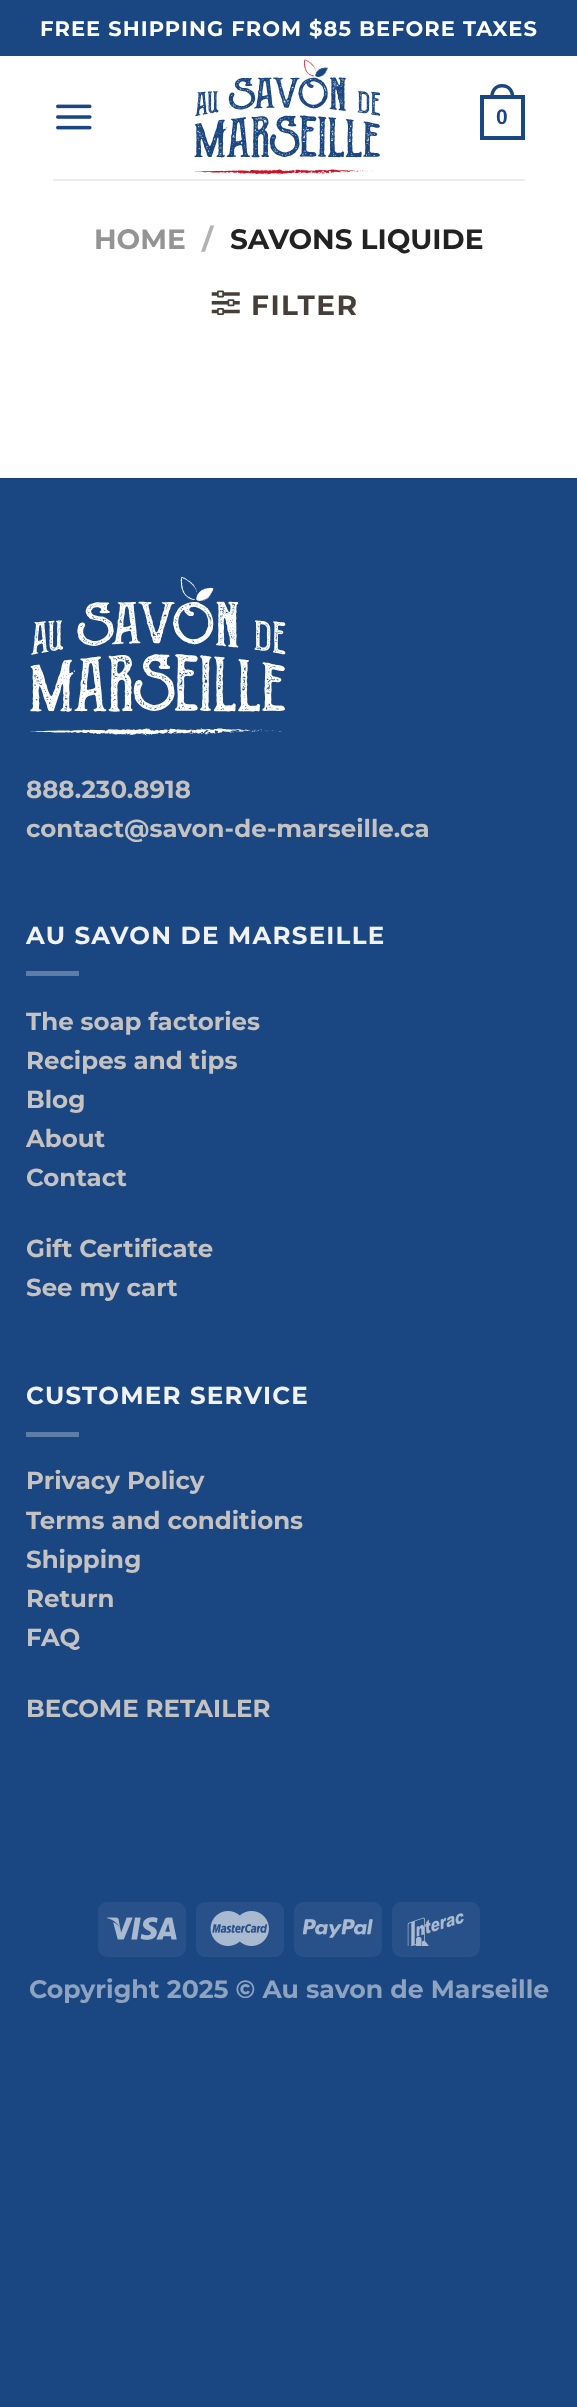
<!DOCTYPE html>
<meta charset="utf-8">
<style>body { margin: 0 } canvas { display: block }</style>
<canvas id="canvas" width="577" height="2407"></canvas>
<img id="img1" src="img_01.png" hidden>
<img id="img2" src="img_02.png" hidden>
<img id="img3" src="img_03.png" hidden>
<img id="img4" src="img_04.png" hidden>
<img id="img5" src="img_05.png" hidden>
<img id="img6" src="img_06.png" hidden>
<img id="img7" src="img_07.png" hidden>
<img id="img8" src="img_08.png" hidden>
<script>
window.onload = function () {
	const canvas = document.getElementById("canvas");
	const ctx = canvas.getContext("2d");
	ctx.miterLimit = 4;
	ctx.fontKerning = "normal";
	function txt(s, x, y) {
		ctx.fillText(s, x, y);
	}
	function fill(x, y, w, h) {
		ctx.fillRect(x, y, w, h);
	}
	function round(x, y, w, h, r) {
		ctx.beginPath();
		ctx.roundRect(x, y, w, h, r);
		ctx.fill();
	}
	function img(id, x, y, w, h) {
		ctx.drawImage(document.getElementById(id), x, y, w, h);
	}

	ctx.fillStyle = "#1A4681";
	fill(0, 0, 577, 2407);
	ctx.fillStyle = "#FFFFFF";
	fill(0, 56, 577, 422);
	img("img1", 56, 104, 36, 26);
	img("img2", 194, 59, 187, 116);
	ctx.strokeStyle = "#1A4681";
	ctx.lineWidth = 4;
	ctx.strokeRect(482, 97, 41, 41);
	ctx.fillStyle = "#1A4681";
	ctx.beginPath();
	ctx.moveTo(502, 84);
	ctx.bezierCurveTo(510.5, 84, 514.5, 90.5, 514.5, 98);
	ctx.lineTo(490, 98);
	ctx.bezierCurveTo(490, 90.5, 494, 84, 502, 84);
	ctx.closePath();
	ctx.moveTo(502, 87.5);
	ctx.bezierCurveTo(508.5, 87.5, 511, 92.5, 511, 98);
	ctx.lineTo(493.5, 98);
	ctx.bezierCurveTo(493.5, 92.5, 496, 87.5, 502, 87.5);
	ctx.closePath();
	ctx.fill("evenodd");
	ctx.fillStyle = "#EDECEB";
	fill(53, 179, 472, 2);
	img("img3", 211, 290, 29, 25);
	ctx.fillStyle = "#19437B";
	fill(0, 478, 577, 2);
	img("img4", 30, 577, 256, 159);
	ctx.fillStyle = "#5F7EA7";
	fill(26, 971, 53, 5);
	fill(26, 1432, 53, 5);
	ctx.fillStyle = "#285189";
	round(98, 1902, 88, 55, 9);
	img("img5", 107, 1917, 70, 23);
	round(196, 1902, 88, 55, 9);
	img("img6", 210, 1911, 59, 35);
	round(294, 1902, 88, 55, 9);
	img("img7", 303, 1919, 70, 19);
	round(392, 1902, 88, 55, 9);
	img("img8", 407, 1913, 57, 33);
	ctx.letterSpacing = "1.05px";
	ctx.font = "bold 21px Montserrat";
	ctx.fillStyle = "#FFFFFF";
	txt("FREE SHIPPING FROM $85 BEFORE TAXES", 40, 36);
	ctx.letterSpacing = "0px";
	ctx.font = "bold 21px Liberation Sans";
	ctx.fillStyle = "#1A4681";
	txt("0", 496, 124);
	ctx.font = "bold 28px Montserrat";
	ctx.fillStyle = "#949494";
	txt("HOME", 94, 249);
	ctx.fillStyle = "#B2B2B2";
	txt("/", 202, 249);
	ctx.fillStyle = "#222222";
	txt("SAVONS LIQUIDE", 230, 249);
	ctx.letterSpacing = "1.5px";
	ctx.fillStyle = "#463E39";
	txt("FILTER", 251, 315);
	ctx.letterSpacing = "0px";
	ctx.font = "bold 24.5px Montserrat";
	ctx.fillStyle = "#C5C2C2";
	txt("888.230.8918", 26, 798);
	txt("contact@savon-de-marseille.ca", 26, 837);
	ctx.letterSpacing = "1.25px";
	ctx.fillStyle = "#F1F1F1";
	txt("AU SAVON DE MARSEILLE", 26, 944);
	ctx.letterSpacing = "0px";
	ctx.fillStyle = "#C5C2C2";
	txt("The soap factories", 26, 1030);
	txt("Recipes and tips", 26, 1069);
	txt("Blog", 26, 1108);
	txt("About", 26, 1147);
	txt("Contact", 26, 1186);
	txt("Gift Certificate", 26, 1257);
	txt("See my cart", 26, 1296);
	ctx.letterSpacing = "1.25px";
	ctx.fillStyle = "#F1F1F1";
	txt("CUSTOMER SERVICE", 26, 1404);
	ctx.letterSpacing = "0px";
	ctx.fillStyle = "#C5C2C2";
	txt("Privacy Policy", 26, 1489);
	txt("Terms and conditions", 26, 1529);
	txt("Shipping", 26, 1568);
	txt("Return", 26, 1607);
	txt("FAQ", 26, 1646);
	txt("BECOME RETAILER", 26, 1717);
	ctx.font = "bold 25.2px Montserrat";
	ctx.fillStyle = "#8DA3C0";
	txt("Copyright 2025 © Au savon de Marseille", 29, 1998);
};
</script>
